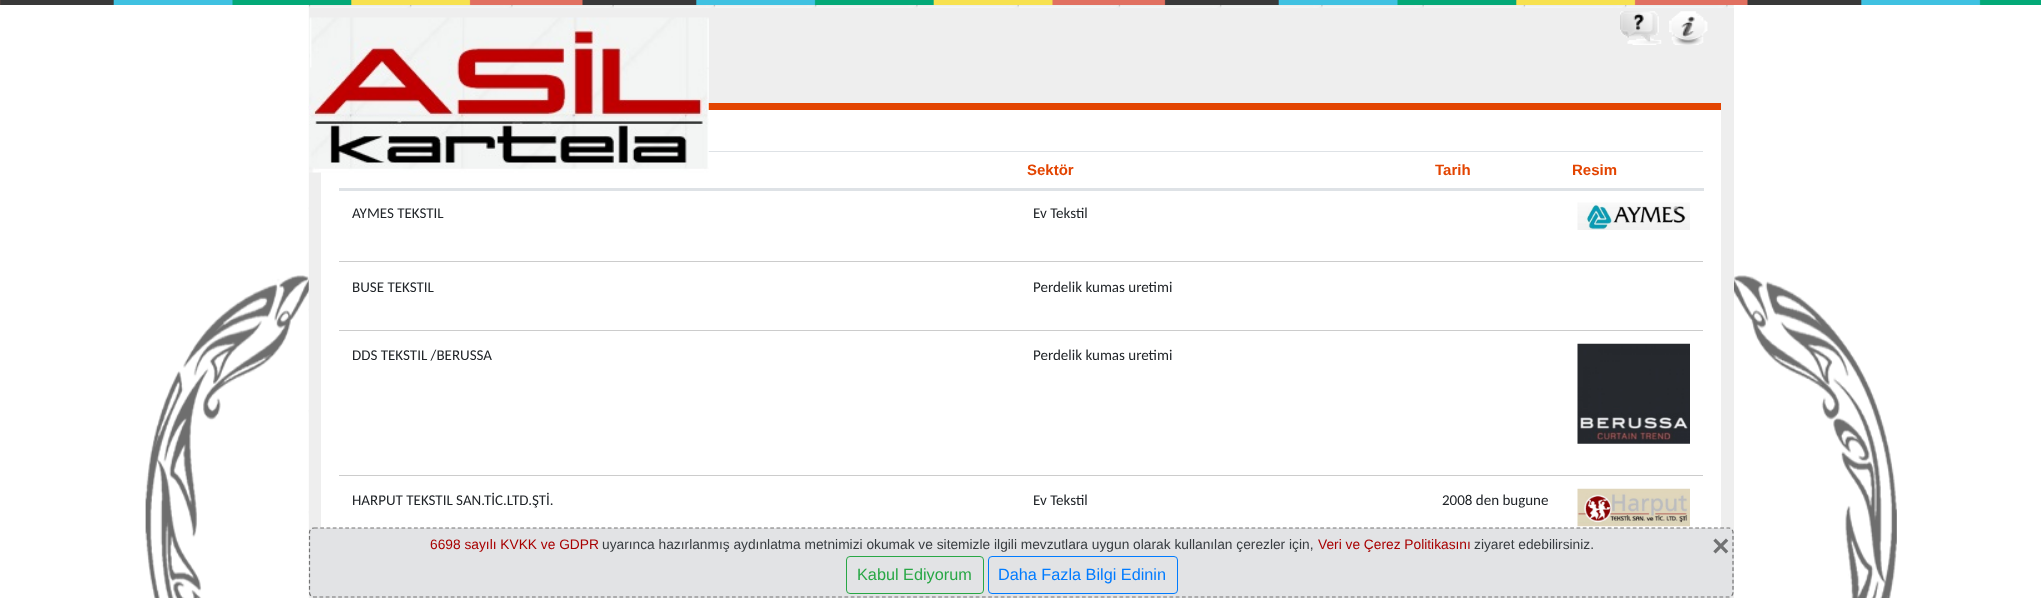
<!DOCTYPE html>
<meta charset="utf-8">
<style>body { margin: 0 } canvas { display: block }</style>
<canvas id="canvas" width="2041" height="598"></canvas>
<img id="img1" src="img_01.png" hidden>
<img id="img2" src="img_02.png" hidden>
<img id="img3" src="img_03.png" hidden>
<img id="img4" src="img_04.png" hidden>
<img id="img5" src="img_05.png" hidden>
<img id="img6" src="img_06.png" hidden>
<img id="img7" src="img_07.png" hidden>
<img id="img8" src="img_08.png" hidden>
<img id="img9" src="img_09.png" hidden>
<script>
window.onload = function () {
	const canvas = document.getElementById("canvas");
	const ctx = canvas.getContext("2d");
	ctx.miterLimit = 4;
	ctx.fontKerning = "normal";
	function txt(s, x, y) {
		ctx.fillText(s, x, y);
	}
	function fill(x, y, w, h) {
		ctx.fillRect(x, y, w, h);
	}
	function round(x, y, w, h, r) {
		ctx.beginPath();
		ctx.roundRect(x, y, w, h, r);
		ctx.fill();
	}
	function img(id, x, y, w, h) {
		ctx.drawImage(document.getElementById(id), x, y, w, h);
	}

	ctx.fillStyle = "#FFFFFF";
	fill(0, 0, 2041, 598);
	img("img1", 145, 275, 1752, 323);
	img("img2", 0, 0, 2041, 5);
	img("img3", 308, 5, 1426, 593);
	ctx.fillStyle = "#EEEEEE";
	fill(309, 8, 1425, 590);
	ctx.fillStyle = "#E34400";
	fill(708, 103, 1013, 7);
	ctx.fillStyle = "#FFFFFF";
	fill(321, 110, 1400, 418);
	ctx.fillStyle = "#DEE2E6";
	fill(708, 151, 995, 1);
	img("img4", 309, 17, 400, 156);
	img("img5", 1620, 11, 42, 34);
	img("img6", 1669, 11, 39, 34);
	fill(339, 188, 1365, 3);
	ctx.fillStyle = "#CCCCCC";
	fill(339, 261, 1364, 1);
	img("img7", 1577, 202, 113, 28);
	fill(339, 330, 1364, 1);
	fill(339, 475, 1364, 1);
	img("img8", 1577, 343, 113, 101);
	img("img9", 1577, 488, 113, 39);
	ctx.fillStyle = "#E2E3E5";
	round(309, 528, 1425, 70, 5);
	ctx.beginPath();
	ctx.moveTo(314, 528);
	ctx.lineTo(1729, 528);
	ctx.bezierCurveTo(1731, 528, 1733, 530, 1733, 532.5);
	ctx.lineTo(1733, 592.5);
	ctx.bezierCurveTo(1733, 595, 1731, 597, 1729, 597);
	ctx.lineTo(314, 597);
	ctx.bezierCurveTo(311.5, 597, 309.5, 595, 309.5, 592.5);
	ctx.lineTo(309.5, 532.5);
	ctx.bezierCurveTo(309.5, 530, 311.5, 528, 314, 528);
	ctx.closePath();
	ctx.strokeStyle = "#757575";
	ctx.lineWidth = 1.2;
	ctx.setLineDash([3.75, 2.5]);
	ctx.stroke();
	ctx.beginPath();
	ctx.roundRect(846.5, 556.5, 137, 37, 3.5);
	ctx.strokeStyle = "#28A745";
	ctx.lineWidth = 1;
	ctx.setLineDash([]);
	ctx.stroke();
	ctx.beginPath();
	ctx.roundRect(988.5, 556.5, 189, 37, 3.5);
	ctx.strokeStyle = "#007BFF";
	ctx.stroke();
	ctx.font = "bold 15px Liberation Sans";
	ctx.fillStyle = "#E34400";
	txt("Sektör", 1027, 175);
	txt("Tarih", 1435, 175);
	txt("Resim", 1572, 175);
	ctx.font = "15px Carlito";
	ctx.fillStyle = "#212529";
	txt("AYMES TEKSTIL", 352, 218);
	txt("Ev Tekstil", 1033, 218);
	txt("BUSE TEKSTIL", 352, 292);
	txt("Perdelik kumas uretimi", 1033, 292);
	txt("DDS TEKSTIL /BERUSSA", 352, 360);
	txt("Perdelik kumas uretimi", 1033, 360);
	txt("HARPUT TEKSTIL SAN.TİC.LTD.ŞTİ.", 352, 505);
	txt("Ev Tekstil", 1033, 505);
	txt("2008 den bugune", 1442, 505);
	ctx.font = "13.75px Liberation Sans";
	ctx.fillStyle = "#A80000";
	txt("6698 sayılı KVKK ve GDPR", 430, 549);
	ctx.fillStyle = "#383D41";
	txt("uyarınca hazırlanmış aydınlatma metnimizi okumak ve sitemizle ilgili mevzutlara uygun olarak kullanılan çerezler için,", 602, 549);
	ctx.fillStyle = "#A80000";
	txt("Veri ve Çerez Politikasını", 1318, 549);
	ctx.fillStyle = "#383D41";
	txt("ziyaret edebilirsiniz.", 1474, 549);
	ctx.font = "bold 30px Liberation Sans";
	ctx.fillStyle = "#717273";
	txt("×", 1712, 556);
	ctx.font = "16.25px Liberation Sans";
	ctx.fillStyle = "#28A745";
	txt("Kabul Ediyorum", 857, 580);
	ctx.fillStyle = "#007BFF";
	txt("Daha Fazla Bilgi Edinin", 998, 580);
};
</script>
